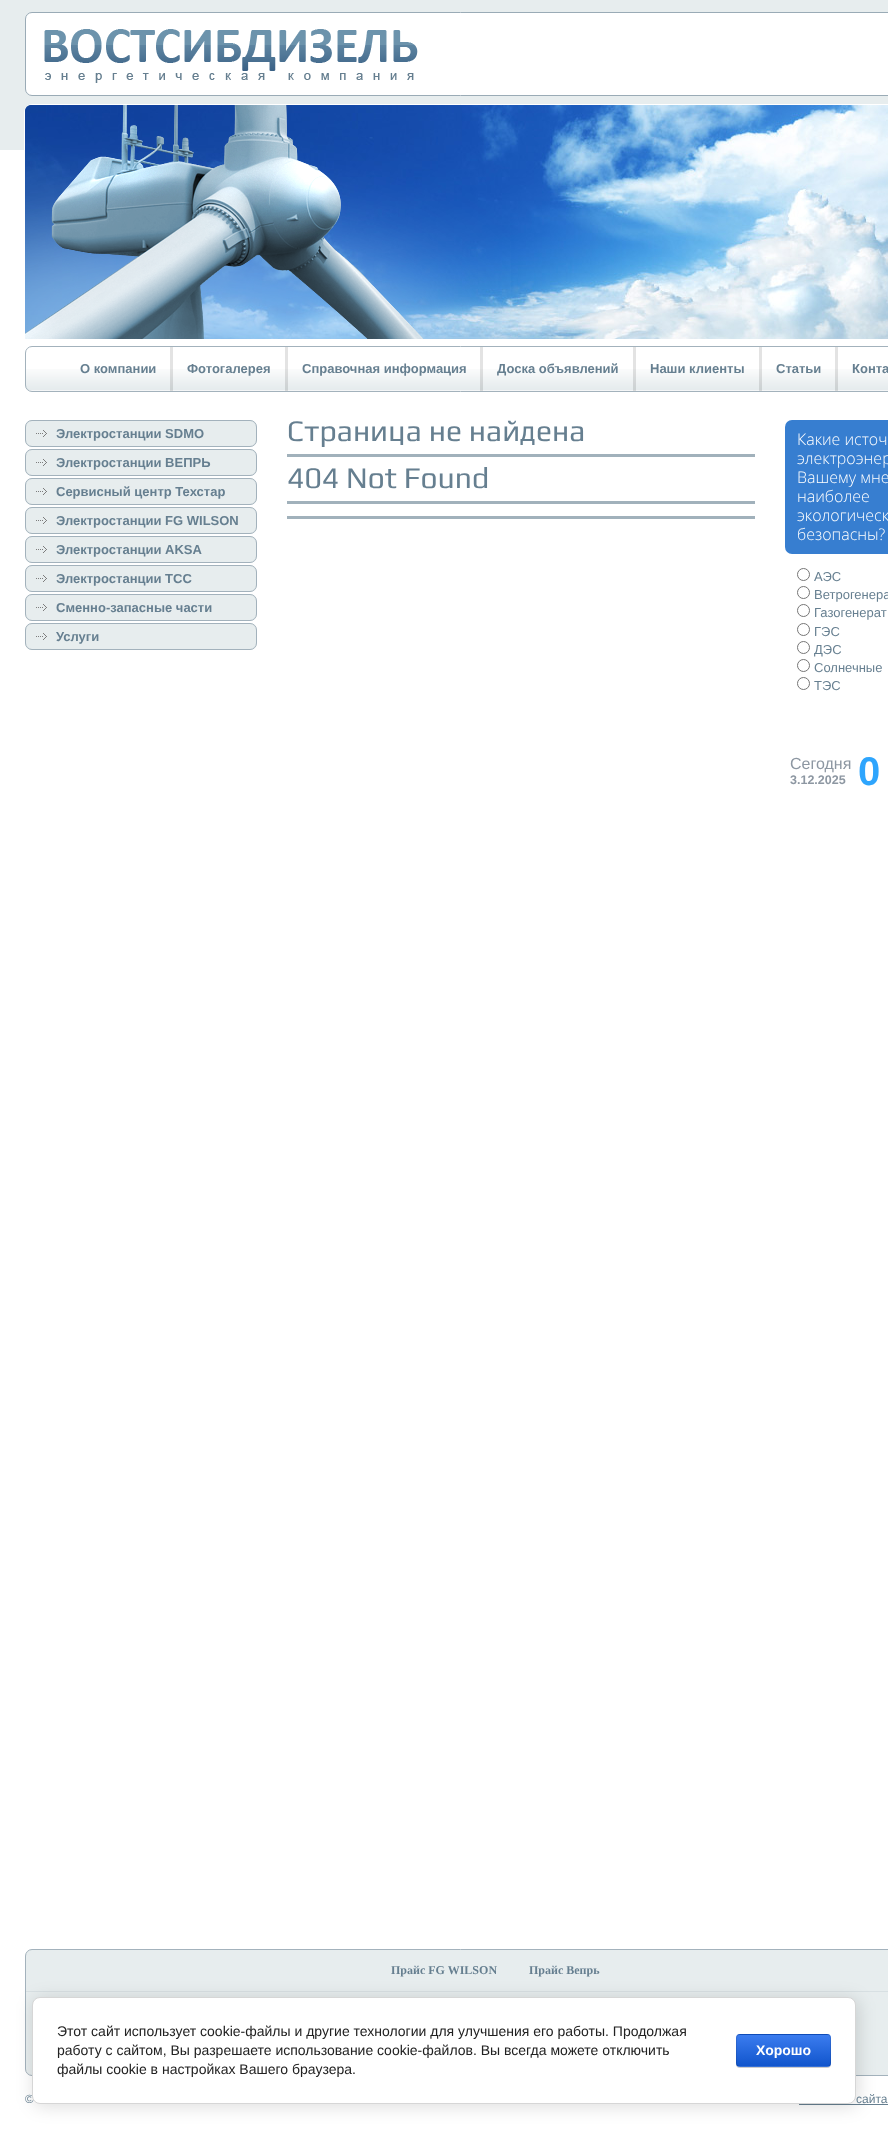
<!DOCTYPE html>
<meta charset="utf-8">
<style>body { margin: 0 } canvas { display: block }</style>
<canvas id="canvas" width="888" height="2136"></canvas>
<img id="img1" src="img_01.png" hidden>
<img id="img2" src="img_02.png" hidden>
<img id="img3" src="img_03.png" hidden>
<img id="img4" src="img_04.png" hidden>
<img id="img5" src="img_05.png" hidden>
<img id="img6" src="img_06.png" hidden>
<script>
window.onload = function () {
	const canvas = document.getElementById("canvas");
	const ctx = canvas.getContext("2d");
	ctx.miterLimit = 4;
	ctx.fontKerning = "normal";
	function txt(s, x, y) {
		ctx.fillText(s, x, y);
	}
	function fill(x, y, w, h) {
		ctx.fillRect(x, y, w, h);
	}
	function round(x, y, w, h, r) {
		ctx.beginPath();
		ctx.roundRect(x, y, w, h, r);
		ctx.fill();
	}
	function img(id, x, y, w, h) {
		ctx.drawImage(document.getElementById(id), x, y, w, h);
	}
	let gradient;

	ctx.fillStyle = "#FFFFFF";
	fill(0, 0, 888, 2136);
	ctx.fillStyle = "#E7EDEE";
	fill(0, 0, 888, 150);
	ctx.fillStyle = "#FFFFFF";
	ctx.beginPath();
	ctx.roundRect(25.5, 12.5, 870, 83, 6.5);
	ctx.fill();
	ctx.strokeStyle = "#9AABB6";
	ctx.stroke();
	img("img1", 44, 29, 374, 54);
	ctx.beginPath();
	ctx.roundRect(24.5, 104.5, 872, 235, 7.5);
	ctx.strokeStyle = "#FFFFFF";
	ctx.stroke();
	img("img2", 25, 105, 6, 6);
	img("img3", 25, 105, 863, 234);
	img("img4", 25, 105, 486, 234);
	img("img5", 25, 369, 863, 22);
	ctx.beginPath();
	ctx.roundRect(25.5, 346.5, 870, 45, 6.5);
	ctx.strokeStyle = "#A3B2BC";
	ctx.stroke();
	ctx.fillStyle = "rgba(0, 0, 0, 0.11)";
	fill(170, 347, 3, 44);
	fill(285, 347, 3, 44);
	fill(480, 347, 3, 44);
	fill(633, 347, 3, 44);
	fill(759, 347, 3, 44);
	fill(835, 347, 3, 44);
	ctx.fillStyle = "#E7EDEE";
	round(25, 420, 232, 27, 7);
	img("img6", 36, 430, 11, 7);
	ctx.beginPath();
	ctx.roundRect(25.5, 420.5, 231, 26, 6.5);
	ctx.stroke();
	round(25, 449, 232, 27, 7);
	img("img6", 36, 459, 11, 7);
	ctx.beginPath();
	ctx.roundRect(25.5, 449.5, 231, 26, 6.5);
	ctx.stroke();
	round(25, 478, 232, 27, 7);
	img("img6", 36, 488, 11, 7);
	ctx.beginPath();
	ctx.roundRect(25.5, 478.5, 231, 26, 6.5);
	ctx.stroke();
	round(25, 507, 232, 27, 7);
	img("img6", 36, 517, 11, 7);
	ctx.beginPath();
	ctx.roundRect(25.5, 507.5, 231, 26, 6.5);
	ctx.stroke();
	round(25, 536, 232, 27, 7);
	img("img6", 36, 546, 11, 7);
	ctx.beginPath();
	ctx.roundRect(25.5, 536.5, 231, 26, 6.5);
	ctx.stroke();
	round(25, 565, 232, 27, 7);
	img("img6", 36, 575, 11, 7);
	ctx.beginPath();
	ctx.roundRect(25.5, 565.5, 231, 26, 6.5);
	ctx.stroke();
	round(25, 594, 232, 27, 7);
	img("img6", 36, 604, 11, 7);
	ctx.beginPath();
	ctx.roundRect(25.5, 594.5, 231, 26, 6.5);
	ctx.stroke();
	round(25, 623, 232, 27, 7);
	img("img6", 36, 633, 11, 7);
	ctx.beginPath();
	ctx.roundRect(25.5, 623.5, 231, 26, 6.5);
	ctx.stroke();
	ctx.fillStyle = "#A1B1BB";
	fill(287, 454, 468, 3);
	fill(287, 501, 468, 3);
	fill(287, 516, 468, 3);
	ctx.fillStyle = "#377ED0";
	round(785, 420, 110, 134, 7);
	ctx.beginPath();
	ctx.arc(803.5, 574.5, 6, 0, Math.PI * 2);
	ctx.strokeStyle = "#767676";
	ctx.stroke();
	ctx.beginPath();
	ctx.arc(803.5, 592.5, 6, 0, Math.PI * 2);
	ctx.stroke();
	ctx.beginPath();
	ctx.arc(803.5, 610.5, 6, 0, Math.PI * 2);
	ctx.stroke();
	ctx.beginPath();
	ctx.arc(803.5, 629.5, 6, 0, Math.PI * 2);
	ctx.stroke();
	ctx.beginPath();
	ctx.arc(803.5, 647.5, 6, 0, Math.PI * 2);
	ctx.stroke();
	ctx.beginPath();
	ctx.arc(803.5, 665.5, 6, 0, Math.PI * 2);
	ctx.stroke();
	ctx.beginPath();
	ctx.arc(803.5, 683.5, 6, 0, Math.PI * 2);
	ctx.stroke();
	ctx.fillStyle = "#E7EDEE";
	ctx.beginPath();
	ctx.roundRect(25.5, 1949.5, 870, 126, 6.5);
	ctx.fill();
	ctx.strokeStyle = "#A3B2BC";
	ctx.stroke();
	ctx.fillStyle = "#D8E0E3";
	fill(26, 1991, 862, 1);
	ctx.fillStyle = "#667F90";
	fill(799, 2104, 89, 1);
	ctx.fillStyle = "rgba(0, 0, 0, 0.14)";
	ctx.filter = "blur(9px)";
	ctx.beginPath();
	ctx.roundRect(34, 1999, 824, 107, 8);
	ctx.fill();
	ctx.filter = "none";
	ctx.font = "bold 13px Liberation Sans";
	ctx.fillStyle = "#667F90";
	txt("О компании", 80, 373);
	txt("Фотогалерея", 187, 373);
	txt("Справочная информация", 302, 373);
	txt("Доска объявлений", 497, 373);
	txt("Наши клиенты", 650, 373);
	txt("Статьи", 776, 373);
	txt("Конта", 852, 373);
	txt("Электростанции SDMO", 56, 438);
	txt("Электростанции ВЕПРЬ", 56, 467);
	txt("Сервисный центр Техстар", 56, 496);
	txt("Электростанции FG WILSON", 56, 525);
	txt("Электростанции AKSA", 56, 554);
	txt("Электростанции ТСС", 56, 583);
	txt("Сменно-запасные части", 56, 612);
	txt("Услуги", 56, 641);
	ctx.font = "30px Play";
	txt("Страница не найдена", 287, 441);
	txt("404 Not Found", 287, 488);
	ctx.font = "300 16px Open Sans";
	ctx.fillStyle = "#FFFFFF";
	txt("Какие источ", 797, 445);
	txt("электроэнер", 797, 464);
	txt("Вашему мне", 797, 483);
	txt("наиболее", 797, 502);
	txt("экологическ", 797, 521);
	txt("безопасны?", 797, 540);
	ctx.font = "13px Liberation Sans";
	ctx.fillStyle = "#667F90";
	txt("АЭС", 814, 581);
	txt("Ветрогенера", 814, 599);
	txt("Газогенерат", 814, 617);
	txt("ГЭС", 814, 636);
	txt("ДЭС", 814, 654);
	txt("Солнечные", 814, 672);
	txt("ТЭС", 814, 690);
	ctx.font = "16px Liberation Sans";
	ctx.fillStyle = "#8D97A2";
	txt("Сегодня", 790, 769);
	ctx.font = "bold 12.5px Liberation Sans";
	txt("3.12.2025", 790, 784);
	ctx.font = "bold 40px Liberation Sans";
	ctx.fillStyle = "#2EA5FD";
	txt("0", 858, 785);
	ctx.font = "bold 12px Liberation Serif";
	ctx.fillStyle = "#667F90";
	txt("Прайс FG WILSON", 391, 1974);
	txt("Прайс Вепрь", 529, 1974);
	ctx.font = "12px Liberation Sans";
	txt("©", 25, 2103);
	txt("сайта", 856, 2103);
	ctx.fillStyle = "#FFFFFF";
	ctx.beginPath();
	ctx.roundRect(32.5, 1997.5, 823, 106, 7.5);
	ctx.fill();
	ctx.strokeStyle = "#D6D6D6";
	ctx.stroke();
	ctx.font = "14px Liberation Sans";
	ctx.fillStyle = "#212121";
	txt("Этот сайт использует cookie-файлы и другие технологии для улучшения его работы. Продолжая", 57, 2036);
	txt("работу с сайтом, Вы разрешаете использование cookie-файлов. Вы всегда можете отключить", 57, 2055);
	txt("файлы cookie в настройках Вашего браузера.", 57, 2074);
	ctx.fillStyle = "rgba(0, 0, 0, 0.2)";
	ctx.filter = "blur(0.5px)";
	ctx.beginPath();
	ctx.roundRect(736, 2035, 95, 33, 4);
	ctx.fill();
	ctx.filter = "none";
	ctx.save();
	ctx.beginPath();
	ctx.roundRect(736, 2034, 95, 33, 4);
	ctx.clip();
	gradient = ctx.createLinearGradient(784, 2004, 784, 2035);
	gradient.addColorStop(0, "#3B7CEF");
	gradient.addColorStop(1, "#1155CC");
	ctx.fillStyle = gradient;
	fill(736, 2034, 95, 1);
	gradient = ctx.createLinearGradient(784, 2035, 784, 2066);
	gradient.addColorStop(0, "#3B7CEF");
	gradient.addColorStop(1, "#1155CC");
	ctx.fillStyle = gradient;
	fill(736, 2035, 95, 31);
	gradient = ctx.createLinearGradient(784, 2066, 784, 2097);
	gradient.addColorStop(0, "#3B7CEF");
	gradient.addColorStop(1, "#1155CC");
	ctx.fillStyle = gradient;
	fill(736, 2066, 95, 1);
	ctx.restore();
	ctx.beginPath();
	ctx.roundRect(736.5, 2034.5, 94, 32, 3.5);
	ctx.strokeStyle = "rgba(0, 0, 0, 0.1)";
	ctx.stroke();
	ctx.font = "bold 14px Liberation Sans";
	ctx.fillStyle = "#FFFFFF";
	txt("Хорошо", 756, 2055);
};
</script>
